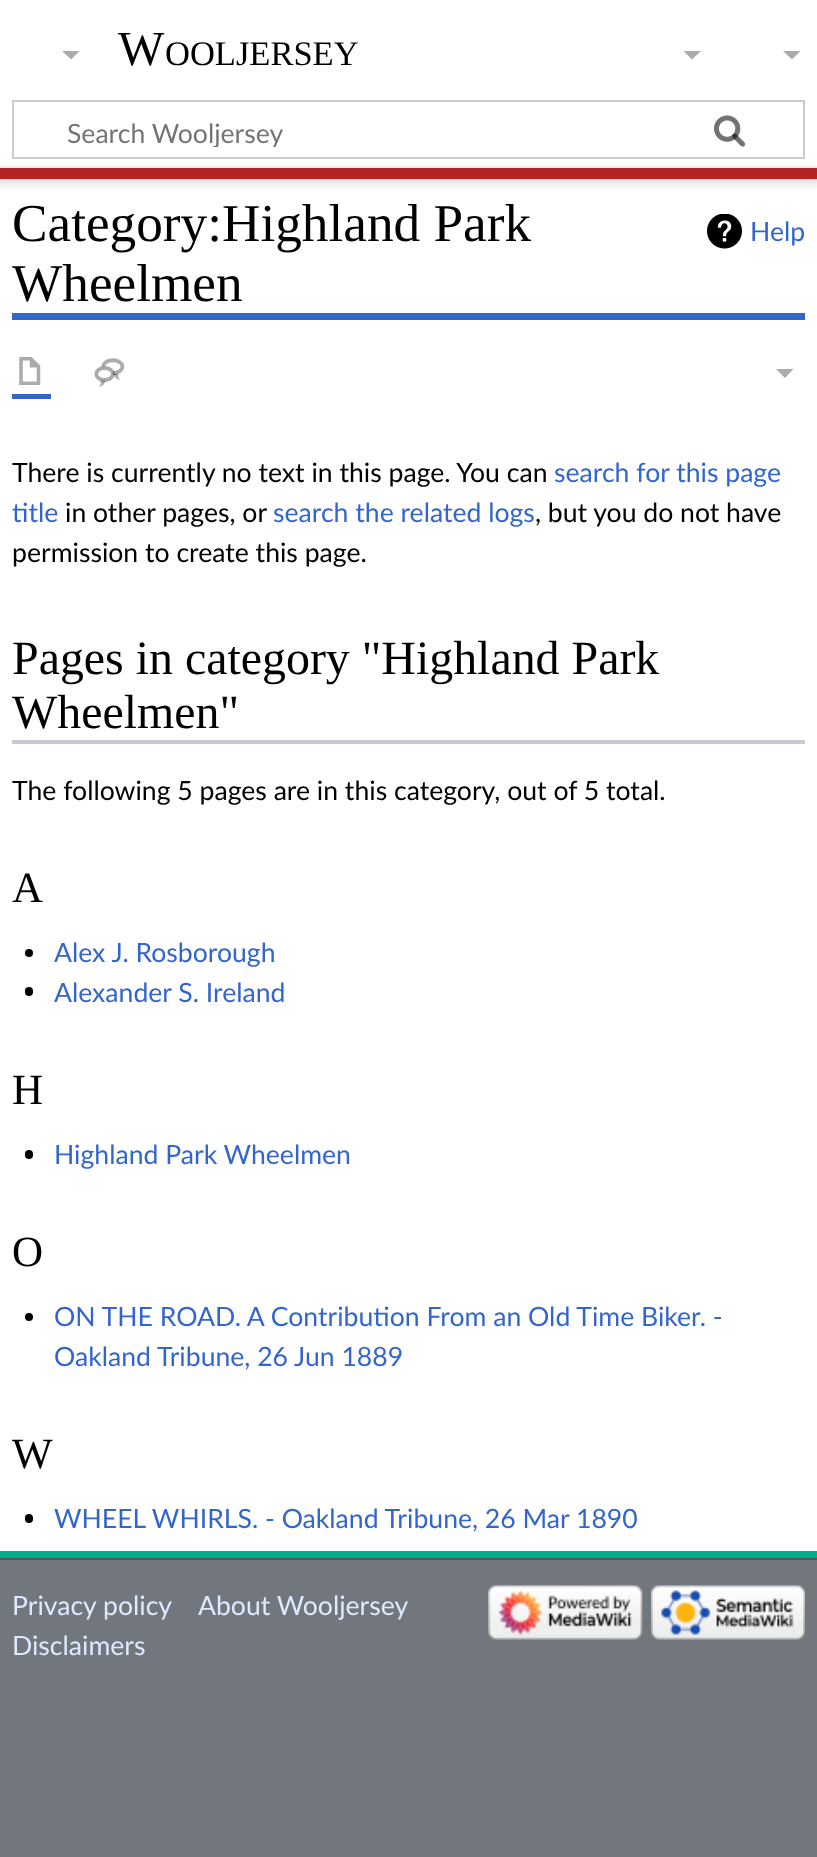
<!DOCTYPE html>
<meta charset="utf-8">
<style>body { margin: 0 } canvas { display: block }</style>
<canvas id="canvas" width="817" height="1857"></canvas>
<img id="img1" src="img_01.png" hidden>
<img id="img2" src="img_02.png" hidden>
<img id="img3" src="img_03.png" hidden>
<img id="img4" src="img_04.png" hidden>
<img id="img5" src="img_05.png" hidden>
<img id="img6" src="img_06.png" hidden>
<img id="img7" src="img_07.png" hidden>
<script>
window.onload = function () {
	const canvas = document.getElementById("canvas");
	const ctx = canvas.getContext("2d");
	ctx.miterLimit = 4;
	ctx.fontKerning = "normal";
	function txt(s, x, y) {
		ctx.fillText(s, x, y);
	}
	function fill(x, y, w, h) {
		ctx.fillRect(x, y, w, h);
	}
	function round(x, y, w, h, r) {
		ctx.beginPath();
		ctx.roundRect(x, y, w, h, r);
		ctx.fill();
	}
	function img(id, x, y, w, h) {
		ctx.drawImage(document.getElementById(id), x, y, w, h);
	}

	ctx.fillStyle = "#72777D";
	fill(0, 0, 817, 1857);
	ctx.fillStyle = "#FFFFFF";
	fill(0, 0, 817, 168);
	ctx.fillStyle = "#ABABAB";
	ctx.beginPath();
	ctx.moveTo(800.5, 51);
	ctx.lineTo(792, 59.5);
	ctx.lineTo(783, 51);
	ctx.closePath();
	ctx.fill();
	ctx.strokeStyle = "#C8CCD1";
	ctx.lineWidth = 2;
	ctx.strokeRect(13, 101, 791, 57);
	img("img1", 714, 115, 32, 32);
	img("img2", 714, 115, 32, 32);
	ctx.fillStyle = "#FFFFFF";
	fill(0, 179, 817, 1372);
	ctx.fillStyle = "rgba(0, 0, 0, 0.2)";
	ctx.filter = "blur(2px)";
	ctx.beginPath();
	ctx.rect(0, 168, 817, 11);
	ctx.fill();
	ctx.filter = "none";
	ctx.fillStyle = "rgba(0, 0, 0, 0.07)";
	ctx.filter = "blur(2.5px)";
	ctx.beginPath();
	ctx.rect(-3, 170, 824, 17);
	ctx.fill();
	ctx.filter = "none";
	ctx.fillStyle = "#B32424";
	fill(0, 168, 817, 11);
	ctx.fillStyle = "#00AF89";
	fill(0, 1551, 817, 7);
	ctx.fillStyle = "#ABABAB";
	ctx.beginPath();
	ctx.moveTo(79.5, 51);
	ctx.lineTo(71, 59.5);
	ctx.lineTo(62, 51);
	ctx.closePath();
	ctx.fill();
	ctx.beginPath();
	ctx.moveTo(701, 51);
	ctx.lineTo(692, 59.5);
	ctx.lineTo(683.5, 51);
	ctx.closePath();
	ctx.fill();
	ctx.fillStyle = "#3366CC";
	fill(12, 313, 793, 7);
	img("img3", 707, 214, 35, 35);
	fill(12, 394, 39, 5);
	img("img4", 19, 357, 22, 28);
	img("img5", 94, 358, 31, 29);
	ctx.fillStyle = "#ABABAB";
	ctx.beginPath();
	ctx.moveTo(793.5, 369);
	ctx.lineTo(785, 378);
	ctx.lineTo(776, 369);
	ctx.closePath();
	ctx.fill();
	ctx.fillStyle = "#C8CCD1";
	fill(12, 740, 793, 4);
	ctx.fillStyle = "#000000";
	ctx.beginPath();
	ctx.arc(29, 953, 4, 0, Math.PI * 2);
	ctx.fill();
	round(25, 987, 8, 9, 4);
	round(25, 1150, 8, 9, 4);
	ctx.beginPath();
	ctx.arc(29, 1317, 4, 0, Math.PI * 2);
	ctx.fill();
	round(25, 1514, 8, 9, 4);
	ctx.fillStyle = "#54595D";
	fill(0, 1558, 817, 2);
	img("img6", 488, 1585, 155, 55);
	img("img7", 651, 1585, 154, 55);
	ctx.font = "49px Liberation Serif";
	ctx.fillStyle = "#000000";
	txt("W", 118, 65);
	ctx.font = "34.5px Liberation Serif";
	txt("OOLJERSEY", 165, 65);
	ctx.save();
	ctx.beginPath();
	ctx.rect(67, 116, 610, 31);
	ctx.clip();
	ctx.font = "26.6px Lato";
	ctx.fillStyle = "#757575";
	txt("Search Wooljersey", 67, 143);
	ctx.restore();
	ctx.font = "53.25px Liberation Serif";
	txt("Category:Highland Park", 12, 241);
	txt("Wheelmen", 12, 301);
	ctx.font = "26.6px Lato";
	ctx.fillStyle = "#3366CC";
	txt("Help", 750, 241);
	ctx.fillStyle = "#000000";
	txt("There is currently no text in this page. You can", 12, 482);
	ctx.fillStyle = "#3366CC";
	txt("search for this page", 554, 482);
	txt("title", 12, 522);
	ctx.fillStyle = "#000000";
	txt("in other pages, or", 65, 522);
	ctx.fillStyle = "#3366CC";
	txt("search the related logs", 273, 522);
	ctx.fillStyle = "#000000";
	txt(", but you do not have", 535, 522);
	txt("permission to create this page.", 12, 562);
	ctx.font = "47.9px Liberation Serif";
	txt("Pages in category \"Highland Park", 12, 674);
	txt("Wheelmen\"", 12, 728);
	ctx.font = "26.6px Lato";
	txt("The following 5 pages are in this category, out of 5 total.", 12, 800);
	ctx.font = "43px Liberation Serif";
	txt("A", 12, 902);
	ctx.font = "26.6px Lato";
	ctx.fillStyle = "#3366CC";
	txt("Alex J. Rosborough", 54, 962);
	txt("Alexander S. Ireland", 54, 1002);
	ctx.font = "43px Liberation Serif";
	ctx.fillStyle = "#000000";
	txt("H", 12, 1104);
	ctx.font = "26.6px Lato";
	ctx.fillStyle = "#3366CC";
	txt("Highland Park Wheelmen", 54, 1164);
	ctx.font = "43px Liberation Serif";
	ctx.fillStyle = "#000000";
	txt("O", 12, 1266);
	ctx.font = "26.6px Lato";
	ctx.fillStyle = "#3366CC";
	txt("ON THE ROAD. A Contribution From an Old Time Biker. -", 54, 1326);
	txt("Oakland Tribune, 26 Jun 1889", 54, 1366);
	ctx.font = "43px Liberation Serif";
	ctx.fillStyle = "#000000";
	txt("W", 12, 1468);
	ctx.font = "26.6px Lato";
	ctx.fillStyle = "#3366CC";
	txt("WHEEL WHIRLS. - Oakland Tribune, 26 Mar 1890", 54, 1528);
	ctx.fillStyle = "#DBEAFF";
	txt("Privacy policy", 12, 1615);
	txt("About Wooljersey", 198, 1615);
	txt("Disclaimers", 12, 1655);
};
</script>
